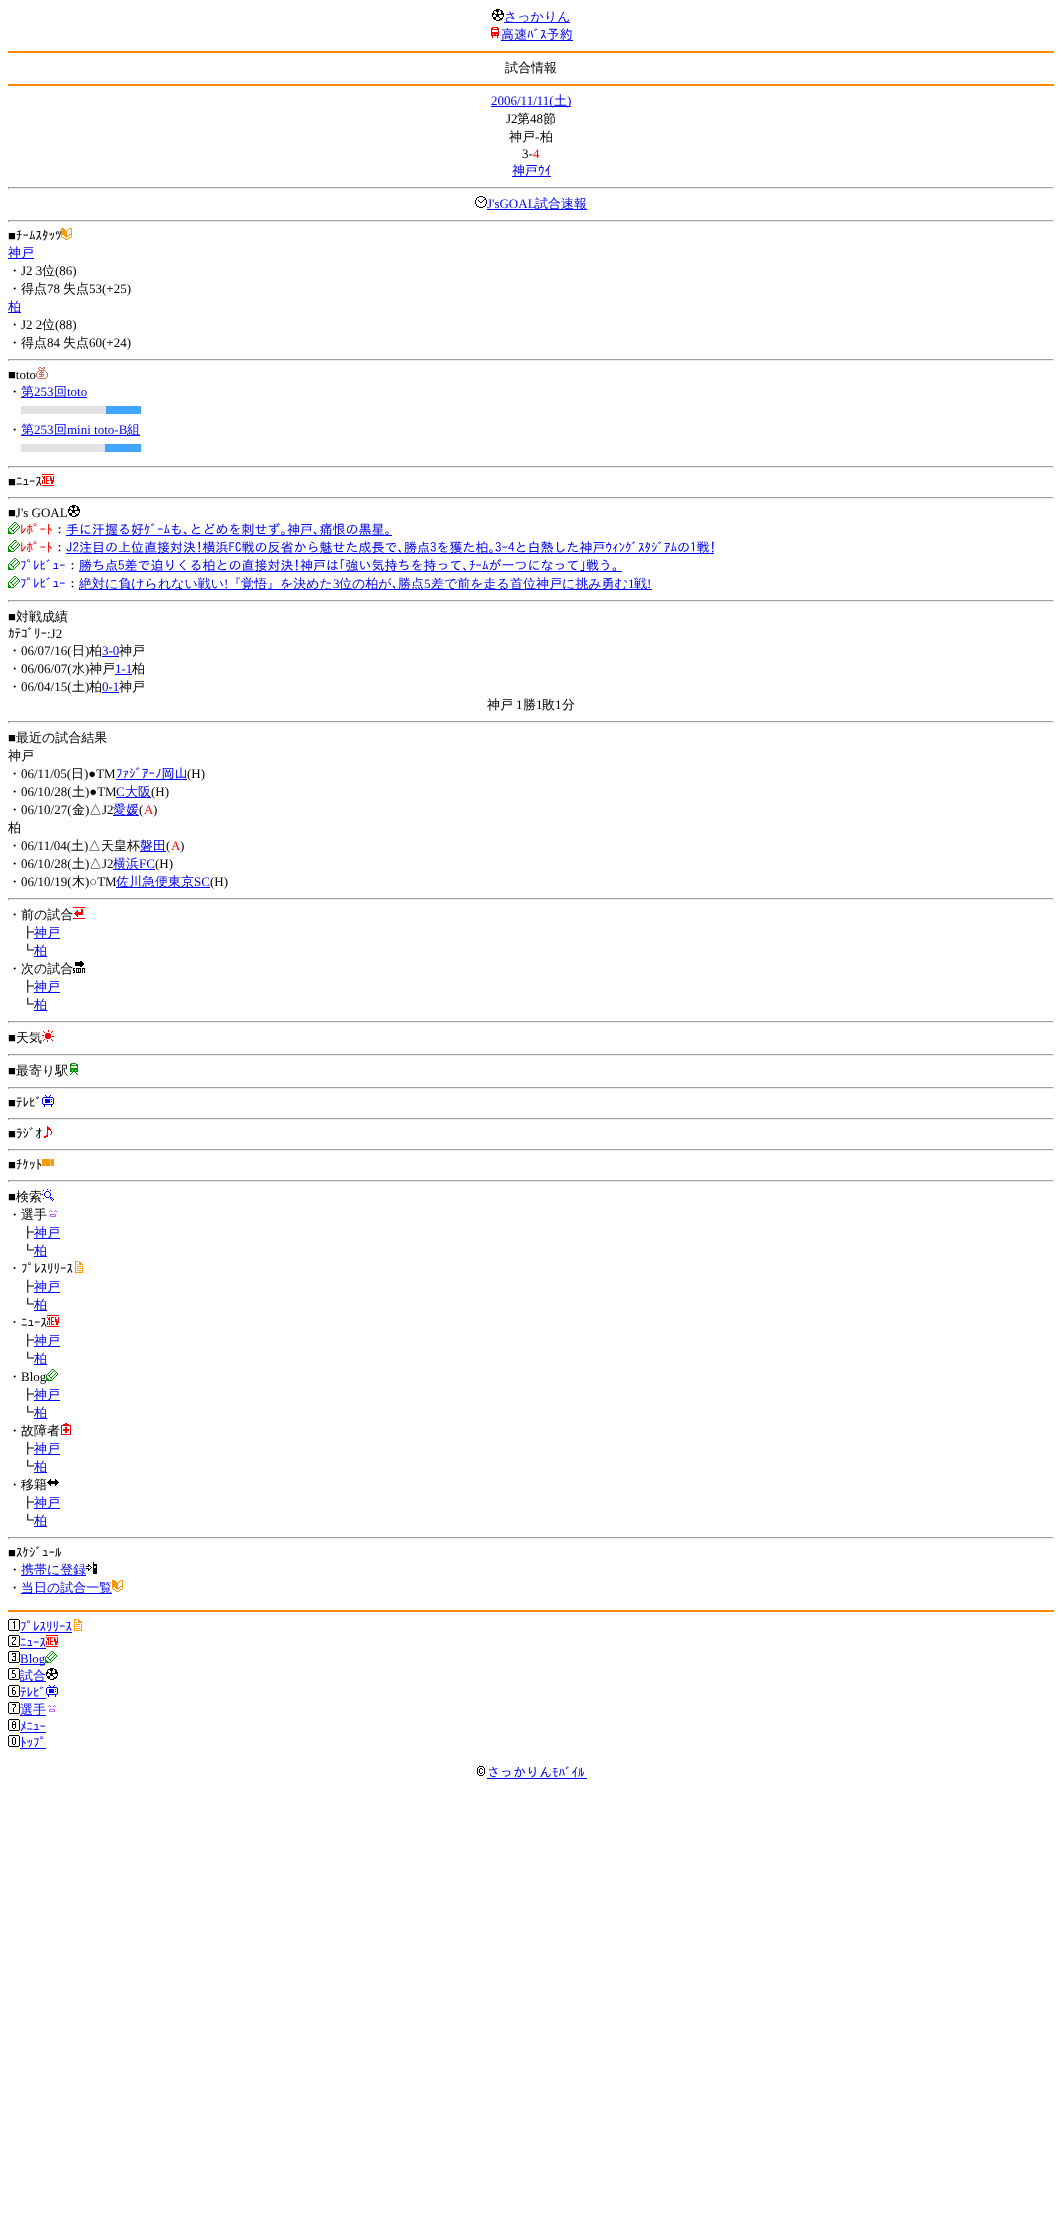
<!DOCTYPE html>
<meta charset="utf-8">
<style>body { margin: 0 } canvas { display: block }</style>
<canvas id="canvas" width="1062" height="2236"></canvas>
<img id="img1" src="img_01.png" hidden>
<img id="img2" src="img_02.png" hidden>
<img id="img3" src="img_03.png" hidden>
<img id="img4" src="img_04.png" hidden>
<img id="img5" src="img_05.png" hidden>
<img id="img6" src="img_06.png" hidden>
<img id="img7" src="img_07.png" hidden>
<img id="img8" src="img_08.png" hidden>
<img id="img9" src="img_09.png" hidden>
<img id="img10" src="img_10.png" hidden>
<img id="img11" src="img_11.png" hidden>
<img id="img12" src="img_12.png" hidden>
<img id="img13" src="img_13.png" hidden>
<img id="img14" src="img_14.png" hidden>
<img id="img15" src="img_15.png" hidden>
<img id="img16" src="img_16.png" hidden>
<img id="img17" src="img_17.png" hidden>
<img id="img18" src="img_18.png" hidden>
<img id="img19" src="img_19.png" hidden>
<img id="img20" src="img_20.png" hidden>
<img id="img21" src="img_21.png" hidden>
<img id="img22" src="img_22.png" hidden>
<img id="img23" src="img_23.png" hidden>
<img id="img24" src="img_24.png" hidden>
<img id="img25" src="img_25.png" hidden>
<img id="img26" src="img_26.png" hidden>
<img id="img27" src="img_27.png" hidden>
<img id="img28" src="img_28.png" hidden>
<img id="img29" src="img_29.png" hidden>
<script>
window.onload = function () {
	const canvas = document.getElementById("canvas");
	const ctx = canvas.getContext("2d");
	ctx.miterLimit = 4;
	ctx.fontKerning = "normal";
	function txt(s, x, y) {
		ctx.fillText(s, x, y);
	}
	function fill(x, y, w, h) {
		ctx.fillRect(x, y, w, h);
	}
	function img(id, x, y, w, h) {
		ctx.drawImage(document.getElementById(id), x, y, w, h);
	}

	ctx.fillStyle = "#FFFFFF";
	fill(0, 0, 1062, 2236);
	img("img1", 492, 9, 12, 12);
	ctx.fillStyle = "#0000EE";
	fill(504, 22, 66, 1);
	img("img2", 491, 27, 8, 11);
	fill(501, 40, 72, 1);
	ctx.fillStyle = "#FF8800";
	fill(8, 51, 1046, 2);
	fill(8, 84, 1046, 2);
	ctx.fillStyle = "#0000EE";
	fill(491, 106, 80, 1);
	fill(512, 176, 39, 1);
	ctx.fillStyle = "#9F9F9F";
	fill(8, 187, 1046, 1);
	ctx.fillStyle = "#EEEEEE";
	fill(1053, 187, 1, 2);
	fill(8, 188, 1046, 1);
	ctx.fillStyle = "#9F9F9F";
	fill(8, 187, 1, 2);
	img("img3", 475, 196, 12, 12);
	ctx.fillStyle = "#0000EE";
	fill(487, 209, 100, 1);
	ctx.fillStyle = "#9F9F9F";
	fill(8, 220, 1046, 1);
	ctx.fillStyle = "#EEEEEE";
	fill(1053, 220, 1, 2);
	fill(8, 221, 1046, 1);
	ctx.fillStyle = "#9F9F9F";
	fill(8, 220, 1, 2);
	img("img4", 61, 228, 11, 12);
	ctx.fillStyle = "#0000EE";
	fill(8, 258, 26, 1);
	fill(8, 312, 13, 1);
	ctx.fillStyle = "#9F9F9F";
	fill(8, 359, 1046, 1);
	ctx.fillStyle = "#EEEEEE";
	fill(1053, 359, 1, 2);
	fill(8, 360, 1046, 1);
	ctx.fillStyle = "#9F9F9F";
	fill(8, 359, 1, 2);
	img("img5", 36, 367, 12, 12);
	ctx.fillStyle = "#0000EE";
	fill(21, 397, 66, 1);
	ctx.fillStyle = "#E2E2E2";
	fill(21, 406, 85, 8);
	ctx.fillStyle = "#41A5FF";
	fill(106, 406, 35, 8);
	ctx.fillStyle = "#0000EE";
	fill(21, 435, 119, 1);
	ctx.fillStyle = "#E2E2E2";
	fill(21, 444, 84, 8);
	ctx.fillStyle = "#41A5FF";
	fill(105, 444, 36, 8);
	ctx.fillStyle = "#9F9F9F";
	fill(8, 466, 1046, 1);
	ctx.fillStyle = "#EEEEEE";
	fill(1053, 466, 1, 2);
	fill(8, 467, 1046, 1);
	ctx.fillStyle = "#9F9F9F";
	fill(8, 466, 1, 2);
	img("img6", 42, 474, 12, 12);
	fill(8, 497, 1046, 1);
	ctx.fillStyle = "#EEEEEE";
	fill(1053, 497, 1, 2);
	fill(8, 498, 1046, 1);
	ctx.fillStyle = "#9F9F9F";
	fill(8, 497, 1, 2);
	img("img1", 68, 505, 12, 12);
	img("img7", 8, 522, 12, 12);
	ctx.fillStyle = "#0000EE";
	fill(66, 535, 326, 1);
	img("img7", 8, 540, 12, 12);
	fill(66, 553, 648, 1);
	img("img7", 8, 558, 12, 12);
	fill(79, 571, 543, 1);
	img("img7", 8, 576, 12, 12);
	fill(79, 589, 573, 1);
	ctx.fillStyle = "#9F9F9F";
	fill(8, 600, 1046, 1);
	ctx.fillStyle = "#EEEEEE";
	fill(1053, 600, 1, 2);
	fill(8, 601, 1046, 1);
	ctx.fillStyle = "#9F9F9F";
	fill(8, 600, 1, 2);
	ctx.fillStyle = "#0000EE";
	fill(102, 656, 17, 1);
	fill(115, 674, 17, 1);
	fill(102, 692, 17, 1);
	ctx.fillStyle = "#9F9F9F";
	fill(8, 721, 1046, 1);
	ctx.fillStyle = "#EEEEEE";
	fill(1053, 721, 1, 2);
	fill(8, 722, 1046, 1);
	ctx.fillStyle = "#9F9F9F";
	fill(8, 721, 1, 2);
	ctx.fillStyle = "#0000EE";
	fill(116, 779, 71, 1);
	fill(116, 797, 35, 1);
	fill(113, 815, 26, 1);
	fill(113, 869, 42, 1);
	fill(116, 887, 94, 1);
	ctx.fillStyle = "#9F9F9F";
	fill(8, 898, 1046, 1);
	ctx.fillStyle = "#EEEEEE";
	fill(1053, 898, 1, 2);
	fill(8, 899, 1046, 1);
	ctx.fillStyle = "#9F9F9F";
	fill(8, 898, 1, 2);
	img("img8", 73, 907, 12, 12);
	ctx.fillStyle = "#0000EE";
	fill(34, 938, 26, 1);
	fill(34, 956, 13, 1);
	img("img9", 73, 961, 12, 12);
	fill(34, 992, 26, 1);
	fill(34, 1010, 13, 1);
	ctx.fillStyle = "#9F9F9F";
	fill(8, 1021, 1046, 1);
	ctx.fillStyle = "#EEEEEE";
	fill(1053, 1021, 1, 2);
	fill(8, 1022, 1046, 1);
	ctx.fillStyle = "#9F9F9F";
	fill(8, 1021, 1, 2);
	img("img10", 42, 1030, 12, 12);
	fill(8, 1054, 1046, 1);
	ctx.fillStyle = "#EEEEEE";
	fill(1053, 1054, 1, 2);
	fill(8, 1055, 1046, 1);
	ctx.fillStyle = "#9F9F9F";
	fill(8, 1054, 1, 2);
	img("img11", 70, 1063, 8, 12);
	fill(8, 1087, 1046, 1);
	ctx.fillStyle = "#EEEEEE";
	fill(1053, 1087, 1, 2);
	fill(8, 1088, 1046, 1);
	ctx.fillStyle = "#9F9F9F";
	fill(8, 1087, 1, 2);
	img("img12", 42, 1095, 12, 12);
	fill(8, 1118, 1046, 1);
	ctx.fillStyle = "#EEEEEE";
	fill(1053, 1118, 1, 2);
	fill(8, 1119, 1046, 1);
	ctx.fillStyle = "#9F9F9F";
	fill(8, 1118, 1, 2);
	img("img13", 44, 1126, 8, 12);
	fill(8, 1149, 1046, 1);
	ctx.fillStyle = "#EEEEEE";
	fill(1053, 1149, 1, 2);
	fill(8, 1150, 1046, 1);
	ctx.fillStyle = "#9F9F9F";
	fill(8, 1149, 1, 2);
	img("img14", 42, 1159, 12, 7);
	fill(8, 1180, 1046, 1);
	ctx.fillStyle = "#EEEEEE";
	fill(1053, 1180, 1, 2);
	fill(8, 1181, 1046, 1);
	ctx.fillStyle = "#9F9F9F";
	fill(8, 1180, 1, 2);
	img("img15", 42, 1189, 12, 12);
	img("img16", 49, 1210, 8, 7);
	ctx.fillStyle = "#0000EE";
	fill(34, 1238, 26, 1);
	fill(34, 1256, 13, 1);
	img("img17", 75, 1261, 8, 12);
	fill(34, 1292, 26, 1);
	fill(34, 1310, 13, 1);
	img("img6", 47, 1315, 12, 12);
	fill(34, 1346, 26, 1);
	fill(34, 1364, 13, 1);
	fill(34, 1400, 26, 1);
	fill(34, 1418, 13, 1);
	img("img18", 61, 1423, 10, 12);
	fill(34, 1454, 26, 1);
	fill(34, 1472, 13, 1);
	img("img19", 47, 1479, 12, 7);
	fill(34, 1508, 26, 1);
	fill(34, 1526, 13, 1);
	ctx.fillStyle = "#9F9F9F";
	fill(8, 1537, 1046, 1);
	ctx.fillStyle = "#EEEEEE";
	fill(1053, 1537, 1, 2);
	fill(8, 1538, 1046, 1);
	ctx.fillStyle = "#9F9F9F";
	fill(8, 1537, 1, 2);
	ctx.fillStyle = "#0000EE";
	fill(21, 1575, 65, 1);
	img("img20", 86, 1562, 11, 12);
	fill(21, 1593, 91, 1);
	img("img4", 112, 1580, 11, 12);
	ctx.fillStyle = "#FF8800";
	fill(8, 1610, 1046, 2);
	img("img21", 8, 1619, 12, 12);
	ctx.fillStyle = "#0000EE";
	fill(20, 1632, 52, 1);
	img("img17", 74, 1619, 8, 12);
	img("img22", 8, 1635, 12, 12);
	fill(20, 1648, 26, 1);
	img("img6", 46, 1635, 12, 12);
	img("img23", 8, 1651, 12, 12);
	fill(20, 1664, 25, 1);
	img("img24", 8, 1668, 12, 12);
	fill(20, 1681, 26, 1);
	img("img1", 46, 1668, 12, 12);
	img("img25", 8, 1685, 12, 12);
	fill(20, 1698, 26, 1);
	img("img12", 46, 1685, 12, 12);
	img("img26", 8, 1702, 12, 12);
	fill(20, 1715, 26, 1);
	img("img16", 48, 1705, 8, 7);
	img("img27", 8, 1719, 12, 12);
	fill(20, 1732, 26, 1);
	img("img28", 8, 1735, 12, 12);
	fill(20, 1748, 26, 1);
	img("img29", 477, 1766, 8, 10);
	fill(487, 1778, 100, 1);
	ctx.font = "500 13px WenQuanYi Zen Hei";
	ctx.fillStyle = "#0000FF";
	txt("さっかりん", 504, 21);
	ctx.font = "13px IPAGothic";
	ctx.fillStyle = "#0000EE";
	txt("高速ﾊﾞｽ予約", 501, 39);
	ctx.font = "500 13px WenQuanYi Zen Hei";
	ctx.fillStyle = "#000000";
	txt("試合情報", 505, 72);
	ctx.font = "13px Liberation Serif";
	ctx.fillStyle = "#0000EE";
	txt("2006/11/11(", 491, 105);
	ctx.font = "500 13px WenQuanYi Zen Hei";
	txt("土", 554, 105);
	ctx.font = "13px Liberation Serif";
	txt(")", 567, 105);
	ctx.fillStyle = "#000000";
	txt("J2", 506, 123);
	ctx.font = "500 13px WenQuanYi Zen Hei";
	txt("第", 517, 123);
	ctx.font = "13px Liberation Serif";
	txt("48", 530, 123);
	ctx.font = "500 13px WenQuanYi Zen Hei";
	txt("節", 543, 123);
	txt("神戸", 509, 141);
	ctx.font = "13px Liberation Serif";
	txt("-", 535, 141);
	ctx.font = "500 13px WenQuanYi Zen Hei";
	txt("柏", 540, 141);
	ctx.font = "13px Liberation Serif";
	txt("3-", 522, 158);
	ctx.fillStyle = "#FF0000";
	txt("4", 533, 158);
	ctx.font = "13px IPAGothic";
	ctx.fillStyle = "#0000EE";
	txt("神戸ｳｲ", 512, 175);
	ctx.font = "13px Liberation Serif";
	txt("J'sGOAL", 487, 208);
	ctx.font = "500 13px WenQuanYi Zen Hei";
	txt("試合速報", 535, 208);
	ctx.font = "13px Liberation Serif";
	ctx.fillStyle = "#000000";
	txt("■", 8, 240);
	ctx.font = "13px IPAGothic";
	txt("ﾁｰﾑｽﾀｯﾂ", 16, 240);
	ctx.font = "500 13px WenQuanYi Zen Hei";
	ctx.fillStyle = "#0000EE";
	txt("神戸", 8, 257);
	ctx.fillStyle = "#000000";
	txt("・", 8, 275);
	ctx.font = "13px Liberation Serif";
	txt("J2 3", 21, 275);
	ctx.font = "500 13px WenQuanYi Zen Hei";
	txt("位", 42, 275);
	ctx.font = "13px Liberation Serif";
	txt("(86)", 55, 275);
	ctx.font = "500 13px WenQuanYi Zen Hei";
	txt("・得点", 8, 293);
	ctx.font = "13px Liberation Serif";
	txt("78", 47, 293);
	ctx.font = "500 13px WenQuanYi Zen Hei";
	txt("失点", 63, 293);
	ctx.font = "13px Liberation Serif";
	txt("53(+25)", 89, 293);
	ctx.font = "500 13px WenQuanYi Zen Hei";
	ctx.fillStyle = "#0000EE";
	txt("柏", 8, 311);
	ctx.fillStyle = "#000000";
	txt("・", 8, 329);
	ctx.font = "13px Liberation Serif";
	txt("J2 2", 21, 329);
	ctx.font = "500 13px WenQuanYi Zen Hei";
	txt("位", 42, 329);
	ctx.font = "13px Liberation Serif";
	txt("(88)", 55, 329);
	ctx.font = "500 13px WenQuanYi Zen Hei";
	txt("・得点", 8, 347);
	ctx.font = "13px Liberation Serif";
	txt("84", 47, 347);
	ctx.font = "500 13px WenQuanYi Zen Hei";
	txt("失点", 63, 347);
	ctx.font = "13px Liberation Serif";
	txt("60(+24)", 89, 347);
	txt("■toto", 8, 379);
	ctx.font = "500 13px WenQuanYi Zen Hei";
	txt("・", 8, 396);
	ctx.fillStyle = "#0000EE";
	txt("第", 21, 396);
	ctx.font = "13px Liberation Serif";
	txt("253", 34, 396);
	ctx.font = "500 13px WenQuanYi Zen Hei";
	txt("回", 54, 396);
	ctx.font = "13px Liberation Serif";
	txt("toto", 67, 396);
	ctx.font = "500 13px WenQuanYi Zen Hei";
	ctx.fillStyle = "#000000";
	txt("・", 8, 434);
	ctx.fillStyle = "#0000EE";
	txt("第", 21, 434);
	ctx.font = "13px Liberation Serif";
	txt("253", 34, 434);
	ctx.font = "500 13px WenQuanYi Zen Hei";
	txt("回", 54, 434);
	ctx.font = "13px Liberation Serif";
	txt("mini toto-B", 67, 434);
	ctx.font = "500 13px WenQuanYi Zen Hei";
	txt("組", 127, 434);
	ctx.font = "13px Liberation Serif";
	ctx.fillStyle = "#000000";
	txt("■", 8, 486);
	ctx.font = "13px IPAGothic";
	txt("ﾆｭｰｽ", 16, 486);
	ctx.font = "13px Liberation Serif";
	txt("■J's GOAL", 8, 517);
	ctx.font = "13px IPAGothic";
	ctx.fillStyle = "#FF0000";
	txt("ﾚﾎﾟｰﾄ", 20, 534);
	ctx.fillStyle = "#000000";
	txt("：", 53, 534);
	ctx.fillStyle = "#0000EE";
	txt("手に汗握る好ｹﾞｰﾑも､とどめを刺せず｡神戸､痛恨の黒星｡", 66, 534);
	ctx.fillStyle = "#FF0000";
	txt("ﾚﾎﾟｰﾄ", 20, 552);
	ctx.fillStyle = "#000000";
	txt("：", 53, 552);
	ctx.fillStyle = "#0000EE";
	txt("J2注目の上位直接対決!横浜FC戦の反省から魅せた成長で､勝点3を獲た柏｡3-4と白熱した神戸ｳｨﾝｸﾞｽﾀｼﾞｱﾑの1戦!", 66, 552);
	ctx.fillStyle = "#0000FF";
	txt("ﾌﾟﾚﾋﾞｭｰ", 20, 570);
	ctx.fillStyle = "#000000";
	txt("：", 66, 570);
	ctx.fillStyle = "#0000EE";
	txt("勝ち点5差で迫りくる柏との直接対決!神戸は｢強い気持ちを持って､ﾁｰﾑが一つになって｣戦う｡", 79, 570);
	ctx.fillStyle = "#0000FF";
	txt("ﾌﾟﾚﾋﾞｭｰ", 20, 588);
	ctx.fillStyle = "#000000";
	txt("：", 66, 588);
	ctx.font = "500 13px WenQuanYi Zen Hei";
	ctx.fillStyle = "#0000EE";
	txt("絶対に負けられない戦い", 79, 588);
	ctx.font = "13px Liberation Serif";
	txt("!", 224, 588);
	ctx.font = "500 13px WenQuanYi Zen Hei";
	txt("『覚悟』を決めた", 228, 588);
	ctx.font = "13px Liberation Serif";
	txt("3", 333, 588);
	ctx.font = "500 13px WenQuanYi Zen Hei";
	txt("位の柏が", 339, 588);
	ctx.font = "13px IPAGothic";
	txt("､", 392, 588);
	ctx.font = "500 13px WenQuanYi Zen Hei";
	txt("勝点", 398, 588);
	ctx.font = "13px Liberation Serif";
	txt("5", 424, 588);
	ctx.font = "500 13px WenQuanYi Zen Hei";
	txt("差で前を走る首位神戸に挑み勇む", 431, 588);
	ctx.font = "13px Liberation Serif";
	txt("1", 628, 588);
	ctx.font = "500 13px WenQuanYi Zen Hei";
	txt("戦", 634, 588);
	ctx.font = "13px Liberation Serif";
	txt("!", 647, 588);
	ctx.fillStyle = "#000000";
	txt("■", 8, 621);
	ctx.font = "500 13px WenQuanYi Zen Hei";
	txt("対戦成績", 16, 621);
	ctx.font = "13px IPAGothic";
	txt("ｶﾃｺﾞﾘｰ", 8, 638);
	ctx.font = "13px Liberation Serif";
	txt(":J2", 47, 638);
	ctx.font = "500 13px WenQuanYi Zen Hei";
	txt("・", 8, 655);
	ctx.font = "13px Liberation Serif";
	txt("06/07/16(", 21, 655);
	ctx.font = "500 13px WenQuanYi Zen Hei";
	txt("日", 72, 655);
	ctx.font = "13px Liberation Serif";
	txt(")", 85, 655);
	ctx.font = "500 13px WenQuanYi Zen Hei";
	txt("柏", 89, 655);
	ctx.font = "13px Liberation Serif";
	ctx.fillStyle = "#0000EE";
	txt("3-0", 102, 655);
	ctx.font = "500 13px WenQuanYi Zen Hei";
	ctx.fillStyle = "#000000";
	txt("神戸", 119, 655);
	txt("・", 8, 673);
	ctx.font = "13px Liberation Serif";
	txt("06/06/07(", 21, 673);
	ctx.font = "500 13px WenQuanYi Zen Hei";
	txt("水", 72, 673);
	ctx.font = "13px Liberation Serif";
	txt(")", 85, 673);
	ctx.font = "500 13px WenQuanYi Zen Hei";
	txt("神戸", 89, 673);
	ctx.font = "13px Liberation Serif";
	ctx.fillStyle = "#0000EE";
	txt("1-1", 115, 673);
	ctx.font = "500 13px WenQuanYi Zen Hei";
	ctx.fillStyle = "#000000";
	txt("柏", 132, 673);
	txt("・", 8, 691);
	ctx.font = "13px Liberation Serif";
	txt("06/04/15(", 21, 691);
	ctx.font = "500 13px WenQuanYi Zen Hei";
	txt("土", 72, 691);
	ctx.font = "13px Liberation Serif";
	txt(")", 85, 691);
	ctx.font = "500 13px WenQuanYi Zen Hei";
	txt("柏", 89, 691);
	ctx.font = "13px Liberation Serif";
	ctx.fillStyle = "#0000EE";
	txt("0-1", 102, 691);
	ctx.font = "500 13px WenQuanYi Zen Hei";
	ctx.fillStyle = "#000000";
	txt("神戸", 119, 691);
	txt("神戸", 487, 709);
	ctx.font = "13px Liberation Serif";
	txt("1", 516, 709);
	ctx.font = "500 13px WenQuanYi Zen Hei";
	txt("勝", 523, 709);
	ctx.font = "13px Liberation Serif";
	txt("1", 536, 709);
	ctx.font = "500 13px WenQuanYi Zen Hei";
	txt("敗", 542, 709);
	ctx.font = "13px Liberation Serif";
	txt("1", 555, 709);
	ctx.font = "500 13px WenQuanYi Zen Hei";
	txt("分", 562, 709);
	ctx.font = "13px Liberation Serif";
	txt("■", 8, 742);
	ctx.font = "500 13px WenQuanYi Zen Hei";
	txt("最近の試合結果", 16, 742);
	txt("神戸", 8, 760);
	txt("・", 8, 778);
	ctx.font = "13px Liberation Serif";
	txt("06/11/05(", 21, 778);
	ctx.font = "500 13px WenQuanYi Zen Hei";
	txt("日", 71, 778);
	ctx.font = "13px Liberation Serif";
	txt(")●TM", 84, 778);
	ctx.font = "13px IPAGothic";
	ctx.fillStyle = "#0000EE";
	txt("ﾌｧｼﾞｱｰﾉ岡山", 116, 778);
	ctx.font = "13px Liberation Serif";
	ctx.fillStyle = "#000000";
	txt("(H)", 187, 778);
	ctx.font = "500 13px WenQuanYi Zen Hei";
	txt("・", 8, 796);
	ctx.font = "13px Liberation Serif";
	txt("06/10/28(", 21, 796);
	ctx.font = "500 13px WenQuanYi Zen Hei";
	txt("土", 72, 796);
	ctx.font = "13px Liberation Serif";
	txt(")●TM", 85, 796);
	ctx.fillStyle = "#0000EE";
	txt("C", 116, 796);
	ctx.font = "500 13px WenQuanYi Zen Hei";
	txt("大阪", 125, 796);
	ctx.font = "13px Liberation Serif";
	ctx.fillStyle = "#000000";
	txt("(H)", 151, 796);
	ctx.font = "500 13px WenQuanYi Zen Hei";
	txt("・", 8, 814);
	ctx.font = "13px Liberation Serif";
	txt("06/10/27(", 21, 814);
	ctx.font = "500 13px WenQuanYi Zen Hei";
	txt("金", 72, 814);
	ctx.font = "13px Liberation Serif";
	txt(")", 85, 814);
	ctx.font = "500 13px WenQuanYi Zen Hei";
	txt("△", 89, 814);
	ctx.font = "13px Liberation Serif";
	txt("J2", 102, 814);
	ctx.font = "500 13px WenQuanYi Zen Hei";
	ctx.fillStyle = "#0000EE";
	txt("愛媛", 113, 814);
	ctx.font = "13px Liberation Serif";
	ctx.fillStyle = "#000000";
	txt("(", 139, 814);
	ctx.fillStyle = "#FF0000";
	txt("A", 144, 814);
	ctx.fillStyle = "#000000";
	txt(")", 153, 814);
	ctx.font = "500 13px WenQuanYi Zen Hei";
	txt("柏", 8, 832);
	txt("・", 8, 850);
	ctx.font = "13px Liberation Serif";
	txt("06/11/04(", 21, 850);
	ctx.font = "500 13px WenQuanYi Zen Hei";
	txt("土", 71, 850);
	ctx.font = "13px Liberation Serif";
	txt(")", 84, 850);
	ctx.font = "500 13px WenQuanYi Zen Hei";
	txt("△天皇杯", 88, 850);
	ctx.fillStyle = "#0000EE";
	fill(140, 851, 26, 1);
	txt("磐田", 140, 850);
	ctx.font = "13px Liberation Serif";
	ctx.fillStyle = "#000000";
	txt("(", 166, 850);
	ctx.fillStyle = "#FF0000";
	txt("A", 171, 850);
	ctx.fillStyle = "#000000";
	txt(")", 180, 850);
	ctx.font = "500 13px WenQuanYi Zen Hei";
	txt("・", 8, 868);
	ctx.font = "13px Liberation Serif";
	txt("06/10/28(", 21, 868);
	ctx.font = "500 13px WenQuanYi Zen Hei";
	txt("土", 72, 868);
	ctx.font = "13px Liberation Serif";
	txt(")", 85, 868);
	ctx.font = "500 13px WenQuanYi Zen Hei";
	txt("△", 89, 868);
	ctx.font = "13px Liberation Serif";
	txt("J2", 102, 868);
	ctx.font = "500 13px WenQuanYi Zen Hei";
	ctx.fillStyle = "#0000EE";
	txt("横浜", 113, 868);
	ctx.font = "13px Liberation Serif";
	txt("FC", 139, 868);
	ctx.fillStyle = "#000000";
	txt("(H)", 155, 868);
	ctx.font = "500 13px WenQuanYi Zen Hei";
	txt("・", 8, 886);
	ctx.font = "13px Liberation Serif";
	txt("06/10/19(", 21, 886);
	ctx.font = "500 13px WenQuanYi Zen Hei";
	txt("木", 72, 886);
	ctx.font = "13px Liberation Serif";
	txt(")○TM", 85, 886);
	ctx.font = "500 13px WenQuanYi Zen Hei";
	ctx.fillStyle = "#0000EE";
	txt("佐川急便東京", 116, 886);
	ctx.font = "13px Liberation Serif";
	txt("SC", 194, 886);
	ctx.fillStyle = "#000000";
	txt("(H)", 210, 886);
	ctx.font = "500 13px WenQuanYi Zen Hei";
	txt("・前の試合", 8, 919);
	txt("┣", 21, 937);
	ctx.fillStyle = "#0000EE";
	txt("神戸", 34, 937);
	ctx.fillStyle = "#000000";
	txt("┗", 21, 955);
	ctx.fillStyle = "#0000EE";
	txt("柏", 34, 955);
	ctx.fillStyle = "#000000";
	txt("・次の試合", 8, 973);
	txt("┣", 21, 991);
	ctx.fillStyle = "#0000EE";
	txt("神戸", 34, 991);
	ctx.fillStyle = "#000000";
	txt("┗", 21, 1009);
	ctx.fillStyle = "#0000EE";
	txt("柏", 34, 1009);
	ctx.font = "13px Liberation Serif";
	ctx.fillStyle = "#000000";
	txt("■", 8, 1042);
	ctx.font = "500 13px WenQuanYi Zen Hei";
	txt("天気", 16, 1042);
	ctx.font = "13px Liberation Serif";
	txt("■", 8, 1075);
	ctx.font = "500 13px WenQuanYi Zen Hei";
	txt("最寄り駅", 16, 1075);
	ctx.font = "13px Liberation Serif";
	txt("■", 8, 1107);
	ctx.font = "13px IPAGothic";
	txt("ﾃﾚﾋﾞ", 16, 1107);
	ctx.font = "13px Liberation Serif";
	txt("■", 8, 1138);
	ctx.font = "13px IPAGothic";
	txt("ﾗｼﾞｵ", 16, 1138);
	ctx.font = "13px Liberation Serif";
	txt("■", 8, 1169);
	ctx.font = "13px IPAGothic";
	txt("ﾁｹｯﾄ", 16, 1169);
	ctx.font = "13px Liberation Serif";
	txt("■", 8, 1201);
	ctx.font = "500 13px WenQuanYi Zen Hei";
	txt("検索", 16, 1201);
	txt("・選手", 8, 1219);
	txt("┣", 21, 1237);
	ctx.fillStyle = "#0000EE";
	txt("神戸", 34, 1237);
	ctx.fillStyle = "#000000";
	txt("┗", 21, 1255);
	ctx.fillStyle = "#0000EE";
	txt("柏", 34, 1255);
	ctx.font = "13px IPAGothic";
	ctx.fillStyle = "#000000";
	txt("・ﾌﾟﾚｽﾘﾘｰｽ", 8, 1273);
	ctx.font = "500 13px WenQuanYi Zen Hei";
	txt("┣", 21, 1291);
	ctx.fillStyle = "#0000EE";
	txt("神戸", 34, 1291);
	ctx.fillStyle = "#000000";
	txt("┗", 21, 1309);
	ctx.fillStyle = "#0000EE";
	txt("柏", 34, 1309);
	ctx.font = "13px IPAGothic";
	ctx.fillStyle = "#000000";
	txt("・ﾆｭｰｽ", 8, 1327);
	ctx.font = "500 13px WenQuanYi Zen Hei";
	txt("┣", 21, 1345);
	ctx.fillStyle = "#0000EE";
	txt("神戸", 34, 1345);
	ctx.fillStyle = "#000000";
	txt("┗", 21, 1363);
	ctx.fillStyle = "#0000EE";
	txt("柏", 34, 1363);
	ctx.fillStyle = "#000000";
	txt("・", 8, 1381);
	ctx.font = "13px Liberation Serif";
	txt("Blog", 21, 1381);
	img("img7", 46, 1369, 12, 12);
	ctx.font = "500 13px WenQuanYi Zen Hei";
	txt("┣", 21, 1399);
	ctx.fillStyle = "#0000EE";
	txt("神戸", 34, 1399);
	ctx.fillStyle = "#000000";
	txt("┗", 21, 1417);
	ctx.fillStyle = "#0000EE";
	txt("柏", 34, 1417);
	ctx.fillStyle = "#000000";
	txt("・故障者", 8, 1435);
	txt("┣", 21, 1453);
	ctx.fillStyle = "#0000EE";
	txt("神戸", 34, 1453);
	ctx.fillStyle = "#000000";
	txt("┗", 21, 1471);
	ctx.fillStyle = "#0000EE";
	txt("柏", 34, 1471);
	ctx.fillStyle = "#000000";
	txt("・移籍", 8, 1489);
	txt("┣", 21, 1507);
	ctx.fillStyle = "#0000EE";
	txt("神戸", 34, 1507);
	ctx.fillStyle = "#000000";
	txt("┗", 21, 1525);
	ctx.fillStyle = "#0000EE";
	txt("柏", 34, 1525);
	ctx.font = "13px Liberation Serif";
	ctx.fillStyle = "#000000";
	txt("■", 8, 1557);
	ctx.font = "13px IPAGothic";
	txt("ｽｹｼﾞｭｰﾙ", 16, 1557);
	ctx.font = "500 13px WenQuanYi Zen Hei";
	txt("・", 8, 1574);
	ctx.fillStyle = "#0000EE";
	txt("携帯に登録", 21, 1574);
	ctx.fillStyle = "#000000";
	txt("・", 8, 1592);
	ctx.fillStyle = "#0000EE";
	txt("当日の試合一覧", 21, 1592);
	ctx.font = "13px IPAGothic";
	ctx.fillStyle = "#0000FF";
	txt("ﾌﾟﾚｽﾘﾘｰｽ", 20, 1631);
	txt("ﾆｭｰｽ", 20, 1647);
	ctx.font = "13px Liberation Serif";
	txt("Blog", 20, 1663);
	img("img7", 45, 1651, 12, 12);
	ctx.font = "500 13px WenQuanYi Zen Hei";
	txt("試合", 20, 1680);
	ctx.font = "13px IPAGothic";
	txt("ﾃﾚﾋﾞ", 20, 1697);
	ctx.font = "500 13px WenQuanYi Zen Hei";
	txt("選手", 20, 1714);
	ctx.font = "13px IPAGothic";
	txt("ﾒﾆｭｰ", 20, 1731);
	txt("ﾄｯﾌﾟ", 20, 1747);
	ctx.fillStyle = "#0000EE";
	txt("さっかりんﾓﾊﾞｲﾙ", 487, 1777);
};
</script>
